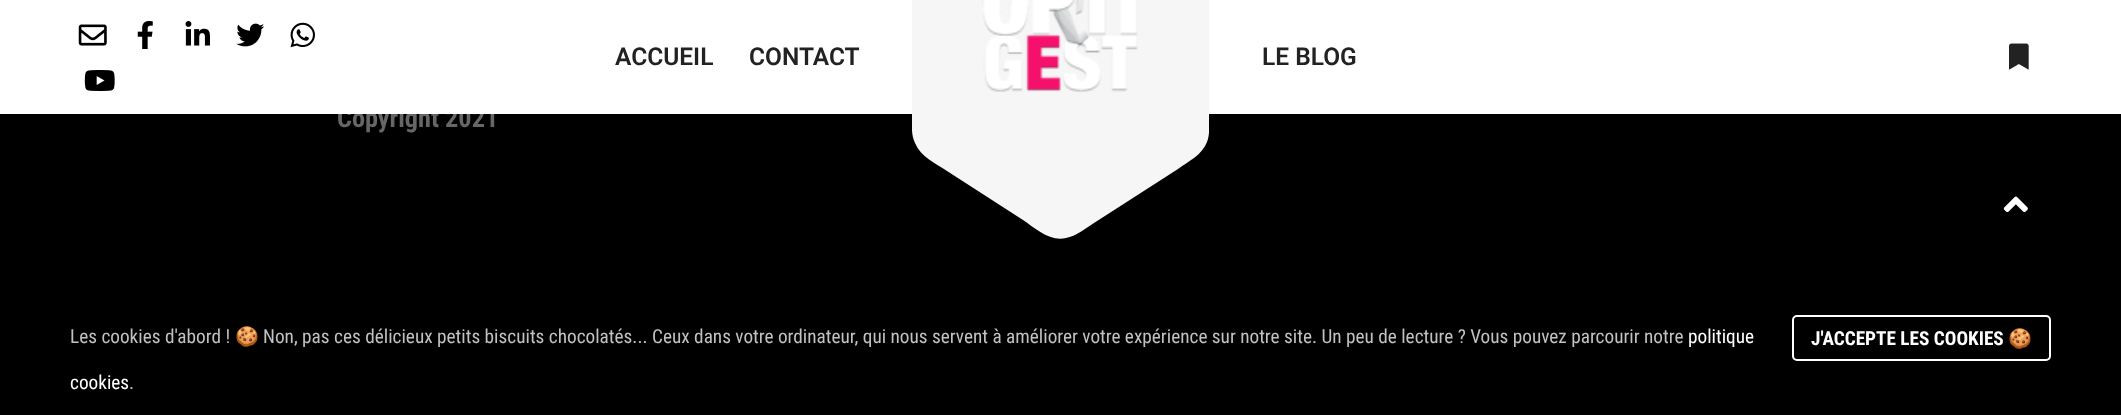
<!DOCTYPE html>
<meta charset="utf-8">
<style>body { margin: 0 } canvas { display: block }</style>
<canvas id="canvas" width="2121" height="415"></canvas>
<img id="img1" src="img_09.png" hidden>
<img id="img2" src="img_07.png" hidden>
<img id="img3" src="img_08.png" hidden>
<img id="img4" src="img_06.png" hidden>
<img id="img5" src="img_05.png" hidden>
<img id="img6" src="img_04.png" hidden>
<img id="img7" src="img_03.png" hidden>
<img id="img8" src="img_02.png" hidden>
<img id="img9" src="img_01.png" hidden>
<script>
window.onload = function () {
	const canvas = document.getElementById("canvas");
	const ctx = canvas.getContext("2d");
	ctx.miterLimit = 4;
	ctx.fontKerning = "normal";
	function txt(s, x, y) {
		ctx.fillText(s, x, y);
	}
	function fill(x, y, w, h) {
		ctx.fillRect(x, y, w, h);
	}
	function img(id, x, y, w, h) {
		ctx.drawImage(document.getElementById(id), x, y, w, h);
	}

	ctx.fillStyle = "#000000";
	fill(0, 0, 2121, 415);
	img("img1", 2003, 196, 25, 16);
	ctx.beginPath();
	ctx.roundRect(1793, 316, 257, 44, 4);
	ctx.strokeStyle = "#FFFFFF";
	ctx.lineWidth = 2;
	ctx.stroke();
	ctx.font = "bold 26.25px Roboto Condensed";
	ctx.fillStyle = "#666666";
	txt("Copyright 2021", 337, 127);
	ctx.fillStyle = "#FFFFFF";
	fill(0, 0, 2121, 114);
	ctx.save();
	ctx.beginPath();
	ctx.rect(912, 0, 297, 242);
	ctx.clip();
	ctx.fillStyle = "#F6F6F6";
	ctx.beginPath();
	ctx.moveTo(912, 1);
	ctx.lineTo(912, 117);
	ctx.bezierCurveTo(912, 126, 911, 135, 915, 143);
	ctx.bezierCurveTo(921, 157, 935, 163, 947, 171);
	ctx.lineTo(1023, 220);
	ctx.bezierCurveTo(1035, 228, 1050, 242, 1066, 238);
	ctx.bezierCurveTo(1076, 236, 1085, 229, 1094, 223);
	ctx.lineTo(1178, 169);
	ctx.bezierCurveTo(1189, 161, 1202, 155, 1207, 142);
	ctx.bezierCurveTo(1210, 134, 1209, 126, 1209, 118);
	ctx.lineTo(1209, -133);
	ctx.lineTo(912, -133);
	ctx.closePath();
	ctx.fill();
	ctx.restore();
	img("img2", 982, 0, 156, 92);
	ctx.font = "600 24.5px Roboto";
	ctx.fillStyle = "#222222";
	txt("LE BLOG", 1262, 65);
	txt("CONTACT", 749, 65);
	txt("ACCUEIL", 615, 65);
	img("img3", 2009, 43, 20, 27);
	img("img4", 84, 70, 31, 21);
	img("img5", 290, 22, 25, 26);
	img("img6", 236, 23, 29, 24);
	img("img7", 185, 21, 25, 25);
	img("img8", 137, 21, 16, 28);
	img("img9", 78, 24, 29, 22);
	ctx.font = "19.25px Roboto Condensed";
	ctx.fillStyle = "#C1C1C1";
	txt("Les cookies d'abord !", 70, 343);
	ctx.font = "19.25px Noto Color Emoji";
	txt("🍪", 235, 343);
	ctx.font = "19.25px Roboto Condensed";
	txt("Non, pas ces délicieux petits biscuits chocolatés... Ceux dans votre ordinateur, qui nous servent à améliorer votre expérience sur notre site. Un peu de lecture ? Vous pouvez parcourir notre", 263, 343);
	ctx.fillStyle = "#FFFFFF";
	txt("politique", 1688, 343);
	txt("cookies", 70, 389);
	ctx.fillStyle = "#C1C1C1";
	txt(".", 129, 389);
	ctx.font = "bold 19.25px Roboto Condensed";
	ctx.fillStyle = "#FFFFFF";
	txt("J'ACCEPTE LES COOKIES", 1811, 345);
	ctx.font = "bold 19.25px Noto Color Emoji";
	txt("🍪", 2008, 345);
};
</script>
